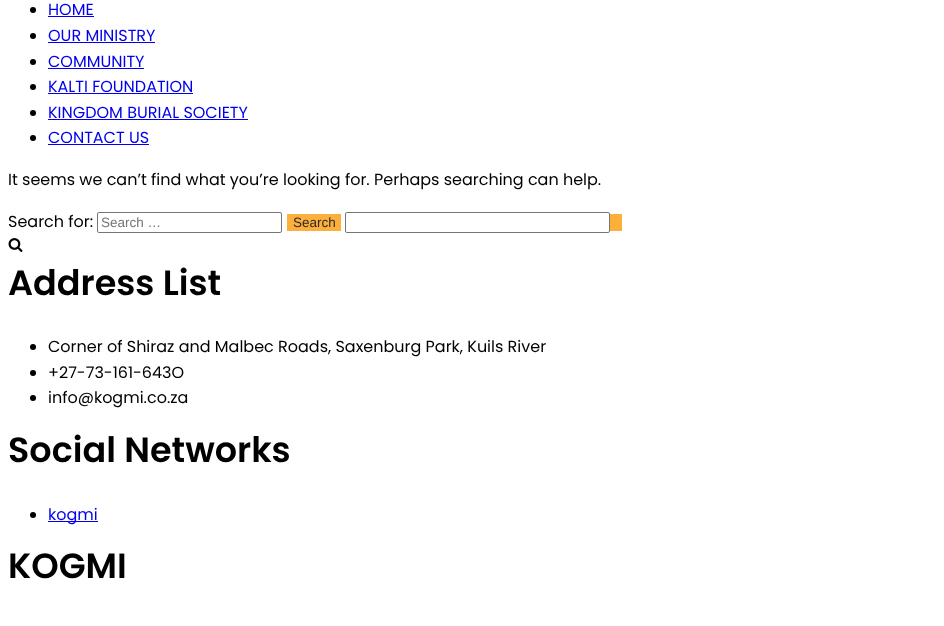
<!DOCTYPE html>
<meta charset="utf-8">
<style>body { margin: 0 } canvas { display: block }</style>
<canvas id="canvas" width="944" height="626"></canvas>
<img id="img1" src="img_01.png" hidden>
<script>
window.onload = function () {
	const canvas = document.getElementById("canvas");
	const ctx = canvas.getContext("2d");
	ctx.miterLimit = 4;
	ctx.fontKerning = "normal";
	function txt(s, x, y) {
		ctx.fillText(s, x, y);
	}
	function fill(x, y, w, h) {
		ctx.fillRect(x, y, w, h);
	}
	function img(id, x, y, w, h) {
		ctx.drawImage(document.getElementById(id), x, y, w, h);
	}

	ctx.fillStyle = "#FFFFFF";
	fill(0, 0, 944, 626);
	ctx.fillStyle = "#000000";
	ctx.beginPath();
	ctx.arc(33, 10, 3, 0, Math.PI * 2);
	ctx.fill();
	ctx.fillStyle = "#0000EE";
	fill(48, 16, 46, 1);
	ctx.fillStyle = "#000000";
	ctx.beginPath();
	ctx.arc(33, 36, 3, 0, Math.PI * 2);
	ctx.fill();
	ctx.fillStyle = "#0000EE";
	fill(48, 42, 107, 1);
	ctx.fillStyle = "#000000";
	ctx.beginPath();
	ctx.arc(33, 62, 3, 0, Math.PI * 2);
	ctx.fill();
	ctx.fillStyle = "#0000EE";
	fill(48, 68, 96, 1);
	ctx.fillStyle = "#000000";
	ctx.beginPath();
	ctx.arc(33, 87, 3, 0, Math.PI * 2);
	ctx.fill();
	ctx.fillStyle = "#0000EE";
	fill(48, 93, 145, 1);
	ctx.fillStyle = "#000000";
	ctx.beginPath();
	ctx.arc(33, 113, 3, 0, Math.PI * 2);
	ctx.fill();
	ctx.fillStyle = "#0000EE";
	fill(48, 119, 200, 1);
	ctx.fillStyle = "#000000";
	ctx.beginPath();
	ctx.arc(33, 138, 3, 0, Math.PI * 2);
	ctx.fill();
	ctx.fillStyle = "#0000EE";
	fill(48, 144, 101, 1);
	ctx.beginPath();
	ctx.roundRect(97.5, 212.5, 184, 20, 1.5);
	ctx.strokeStyle = "#767676";
	ctx.stroke();
	ctx.fillStyle = "#FCAF3B";
	fill(287, 214, 54, 17);
	ctx.beginPath();
	ctx.roundRect(345.5, 212.5, 264, 20, 1.5);
	ctx.stroke();
	fill(610, 214, 12, 17);
	img("img1", 8, 238, 15, 14);
	ctx.fillStyle = "#000000";
	ctx.beginPath();
	ctx.arc(33, 347, 3, 0, Math.PI * 2);
	ctx.fill();
	ctx.beginPath();
	ctx.arc(33, 373, 3, 0, Math.PI * 2);
	ctx.fill();
	ctx.beginPath();
	ctx.arc(33, 398, 3, 0, Math.PI * 2);
	ctx.fill();
	ctx.beginPath();
	ctx.arc(33, 515, 3, 0, Math.PI * 2);
	ctx.fill();
	ctx.fillStyle = "#0000EE";
	fill(48, 521, 50, 1);
	ctx.font = "16px Poppins";
	txt("HOME", 48, 15);
	txt("OUR MINISTRY", 48, 41);
	txt("COMMUNITY", 48, 67);
	txt("KALTI FOUNDATION", 48, 92);
	txt("KINGDOM BURIAL SOCIETY", 48, 118);
	txt("CONTACT US", 48, 143);
	ctx.fillStyle = "#000000";
	txt("It seems we can’t find what you’re looking for. Perhaps searching can help.", 8, 185);
	txt("Search for:", 8, 227);
	ctx.font = "13.5px Liberation Sans";
	ctx.fillStyle = "#757575";
	txt("Search …", 101, 227);
	ctx.fillStyle = "#2B2B2B";
	txt("Search", 293, 227);
	ctx.font = "600 35px Poppins";
	ctx.fillStyle = "#000000";
	txt("Address List", 8, 295);
	ctx.font = "16px Poppins";
	txt("Corner of Shiraz and Malbec Roads, Saxenburg Park, Kuils River", 48, 352);
	txt("+27-73-161-643O", 48, 378);
	txt("info@kogmi.co.za", 48, 403);
	ctx.font = "600 35px Poppins";
	txt("Social Networks", 8, 462);
	ctx.font = "16px Poppins";
	ctx.fillStyle = "#0000EE";
	txt("kogmi", 48, 520);
	ctx.font = "600 35px Poppins";
	ctx.fillStyle = "#000000";
	txt("KOGMI", 8, 578);
};
</script>
